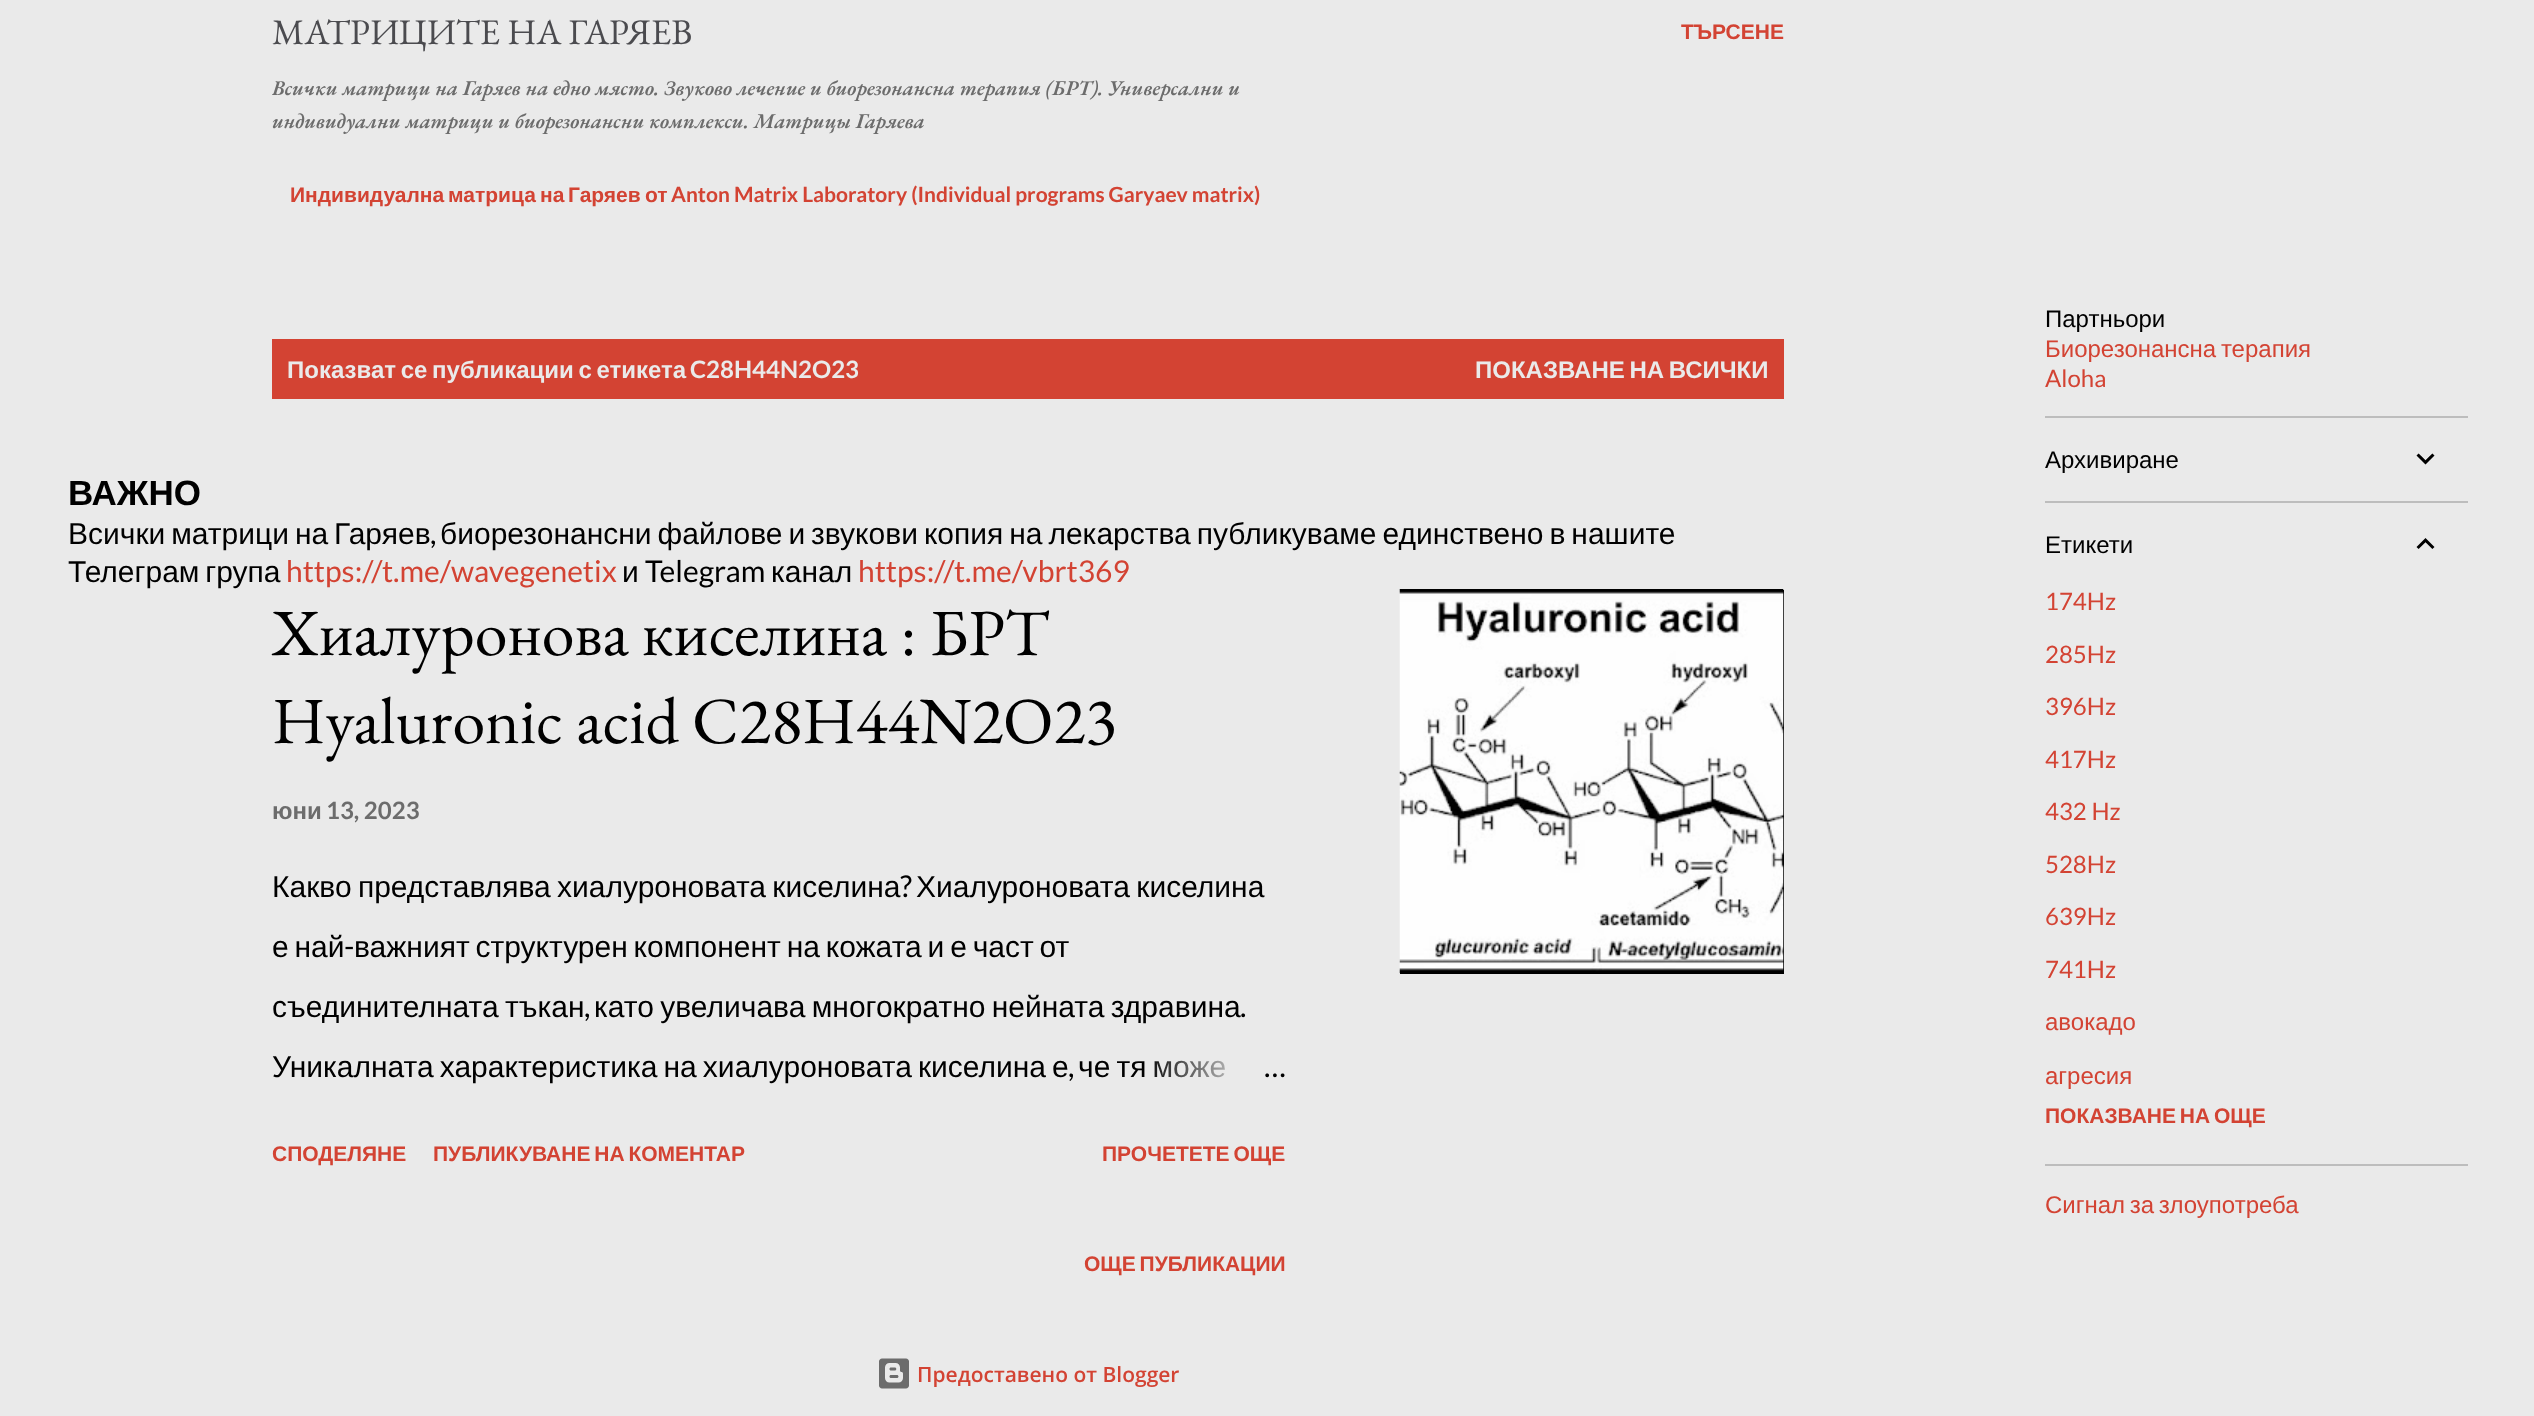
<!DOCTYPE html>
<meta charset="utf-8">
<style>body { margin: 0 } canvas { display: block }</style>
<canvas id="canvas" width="2534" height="1416"></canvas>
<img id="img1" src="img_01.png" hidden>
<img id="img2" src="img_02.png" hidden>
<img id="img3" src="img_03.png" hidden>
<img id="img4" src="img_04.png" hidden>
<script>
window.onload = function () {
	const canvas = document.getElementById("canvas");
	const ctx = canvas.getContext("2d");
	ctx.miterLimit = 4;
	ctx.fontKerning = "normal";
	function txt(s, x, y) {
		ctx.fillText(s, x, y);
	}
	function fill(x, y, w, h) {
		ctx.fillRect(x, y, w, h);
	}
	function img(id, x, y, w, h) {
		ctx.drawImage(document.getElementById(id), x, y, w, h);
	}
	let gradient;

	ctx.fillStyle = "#EAEAEA";
	fill(0, 0, 2534, 1416);
	ctx.fillStyle = "#D34333";
	fill(272, 339, 1512, 60);
	ctx.fillStyle = "#000000";
	fill(1400, 590, 384, 384);
	img("img1", 1399, 589, 385, 384);
	ctx.fillStyle = "#BDBDBD";
	fill(2045, 416, 423, 2);
	img("img2", 2416, 453, 19, 12);
	fill(2045, 501, 423, 2);
	img("img3", 2416, 538, 19, 11);
	fill(2045, 1164, 423, 2);
	img("img4", 879, 1358, 30, 31);
	ctx.font = "36px EB Garamond";
	ctx.fillStyle = "#4B4B4F";
	txt("МАТРИЦИТЕ НА ГАРЯЕВ", 272, 44);
	ctx.save();
	ctx.beginPath();
	ctx.rect(272, 14, 1512, 145);
	ctx.clip();
	ctx.font = "italic 600 21px EB Garamond";
	ctx.fillStyle = "#6C6C6C";
	txt("Всички матрици на Гаряев на едно място. Звуково лечение и биорезонансна терапия (БРТ). Универсални и", 272, 95);
	ctx.restore();
	ctx.font = "italic 600 21px EB Garamond";
	ctx.fillStyle = "#6C6C6C";
	txt("индивидуални матрици и биорезонансни комплекси. Матрицы Гаряева", 272, 128);
	ctx.font = "bold 21px Liberation Sans";
	ctx.fillStyle = "#D34333";
	txt("ТЪРСЕНЕ", 1681, 39);
	txt("Индивидуална", 290, 202);
	txt("матрица", 448, 202);
	txt("на", 540, 202);
	txt("Гаряев", 568, 202);
	txt("от", 645, 202);
	ctx.font = "bold 21px Lato";
	txt("Anton Matrix Laboratory (Individual programs Garyaev matrix)", 671, 202);
	ctx.wordSpacing = "-2px";
	ctx.font = "bold 24px Liberation Sans";
	ctx.fillStyle = "#EAEAEA";
	txt("Показват се публикации с етикета", 287, 378);
	ctx.wordSpacing = "0px";
	ctx.font = "bold 24px Lato";
	txt("C28H44N2O23", 690, 378);
	ctx.wordSpacing = "-2px";
	ctx.font = "bold 24px Liberation Sans";
	txt("ПОКАЗВАНЕ НА ВСИЧКИ", 1475, 378);
	ctx.wordSpacing = "0px";
	ctx.font = "bold 35px Liberation Sans";
	ctx.fillStyle = "#000000";
	txt("ВАЖНО", 68, 505);
	ctx.wordSpacing = "-2.4px";
	ctx.font = "30px Liberation Sans";
	txt("Всички матрици на Гаряев", 68, 544);
	ctx.wordSpacing = "0px";
	ctx.font = "30px Lato";
	txt(",", 430, 544);
	ctx.wordSpacing = "-2.4px";
	ctx.font = "30px Liberation Sans";
	txt("биорезонансни файлове и звукови копия на лекарства публикуваме единствено в нашите", 440, 544);
	ctx.wordSpacing = "-2.5px";
	txt("Телеграм група", 68, 582);
	ctx.wordSpacing = "0px";
	ctx.font = "30px Lato";
	ctx.fillStyle = "#D34333";
	txt("https://t.me/wavegenetix", 286, 582);
	ctx.font = "30px Liberation Sans";
	ctx.fillStyle = "#000000";
	txt("и", 622, 582);
	ctx.font = "30px Lato";
	txt("Telegram", 645, 582);
	ctx.font = "30px Liberation Sans";
	txt("канал", 771, 582);
	ctx.font = "30px Lato";
	ctx.fillStyle = "#D34333";
	txt("https://t.me/vbrt369", 858, 582);
	ctx.font = "66px EB Garamond";
	ctx.fillStyle = "#000000";
	txt("Хиалуронова киселина : БРТ", 272, 655);
	txt("Hyaluronic acid C28H44N2O23", 272, 743);
	ctx.font = "bold 24px Liberation Sans";
	ctx.fillStyle = "#6C6C6C";
	txt("юни", 272, 819);
	ctx.font = "bold 24px Lato";
	txt("13, 2023", 326, 819);
	ctx.wordSpacing = "-2px";
	ctx.font = "30px Liberation Sans";
	ctx.fillStyle = "#000000";
	txt("Какво представлява хиалуроновата киселина", 272, 897);
	ctx.wordSpacing = "0px";
	ctx.font = "30px Lato";
	txt("?", 900, 897);
	ctx.wordSpacing = "-2px";
	ctx.font = "30px Liberation Sans";
	txt("Хиалуроновата киселина", 916, 897);
	ctx.wordSpacing = "-2.5px";
	txt("е най", 272, 957);
	ctx.wordSpacing = "0px";
	ctx.font = "30px Lato";
	txt("-", 344, 957);
	ctx.wordSpacing = "-2.5px";
	ctx.font = "30px Liberation Sans";
	txt("важният структурен компонент на кожата и е част от", 354, 957);
	ctx.wordSpacing = "-2px";
	txt("съединителната тъкан", 272, 1017);
	ctx.wordSpacing = "0px";
	ctx.font = "30px Lato";
	txt(",", 584, 1017);
	ctx.wordSpacing = "-2px";
	ctx.font = "30px Liberation Sans";
	txt("като увеличава многократно нейната здравина", 594, 1017);
	ctx.wordSpacing = "0px";
	ctx.font = "30px Lato";
	txt(".", 1240, 1017);
	ctx.wordSpacing = "-2.25px";
	ctx.font = "30px Liberation Sans";
	txt("Уникалната характеристика на хиалуроновата киселина е", 272, 1077);
	ctx.wordSpacing = "0px";
	ctx.font = "30px Lato";
	txt(",", 1068, 1077);
	ctx.wordSpacing = "-2.25px";
	ctx.font = "30px Liberation Sans";
	txt("че тя може", 1078, 1077);
	gradient = ctx.createLinearGradient(1286, 1065, 1142, 1065);
	gradient.addColorStop(0, "#EAEAEA");
	gradient.addColorStop(0.2, "#EAEAEA");
	gradient.addColorStop(1, "rgba(234, 234, 234, 0)");
	ctx.fillStyle = gradient;
	fill(1154, 1060, 71, 18);
	ctx.wordSpacing = "0px";
	ctx.font = "30px Lato";
	ctx.fillStyle = "#000000";
	txt("…", 1264, 1077);
	ctx.font = "bold 21px Liberation Sans";
	ctx.fillStyle = "#D34333";
	txt("СПОДЕЛЯНЕ", 272, 1161);
	ctx.wordSpacing = "-2px";
	txt("ПУБЛИКУВАНЕ НА КОМЕНТАР", 433, 1161);
	txt("ПРОЧЕТЕТЕ ОЩЕ", 1102, 1161);
	txt("ОЩЕ ПУБЛИКАЦИИ", 1084, 1271);
	ctx.wordSpacing = "0px";
	ctx.font = "24px Liberation Sans";
	ctx.fillStyle = "#000000";
	txt("Партньори", 2045, 327);
	ctx.wordSpacing = "-2px";
	ctx.fillStyle = "#D34333";
	txt("Биорезонансна терапия", 2045, 357);
	ctx.wordSpacing = "0px";
	ctx.font = "24px Lato";
	txt("Aloha", 2045, 387);
	ctx.font = "24px Liberation Sans";
	ctx.fillStyle = "#000000";
	txt("Архивиране", 2045, 468);
	txt("Етикети", 2045, 553);
	ctx.font = "24px Lato";
	ctx.fillStyle = "#D34333";
	txt("174Hz", 2045, 610);
	txt("285Hz", 2045, 663);
	txt("396Hz", 2045, 715);
	txt("417Hz", 2045, 768);
	txt("432 Hz", 2045, 820);
	txt("528Hz", 2045, 873);
	txt("639Hz", 2045, 925);
	txt("741Hz", 2045, 978);
	ctx.font = "24px Liberation Sans";
	txt("авокадо", 2045, 1030);
	txt("агресия", 2045, 1084);
	ctx.wordSpacing = "-2px";
	ctx.font = "bold 21px Liberation Sans";
	txt("ПОКАЗВАНЕ НА ОЩЕ", 2045, 1123);
	ctx.font = "24px Liberation Sans";
	txt("Сигнал за злоупотреба", 2045, 1213);
	ctx.wordSpacing = "0px";
	ctx.font = "600 21px Open Sans";
	txt("Предоставено от Blogger", 917, 1382);
};
</script>
